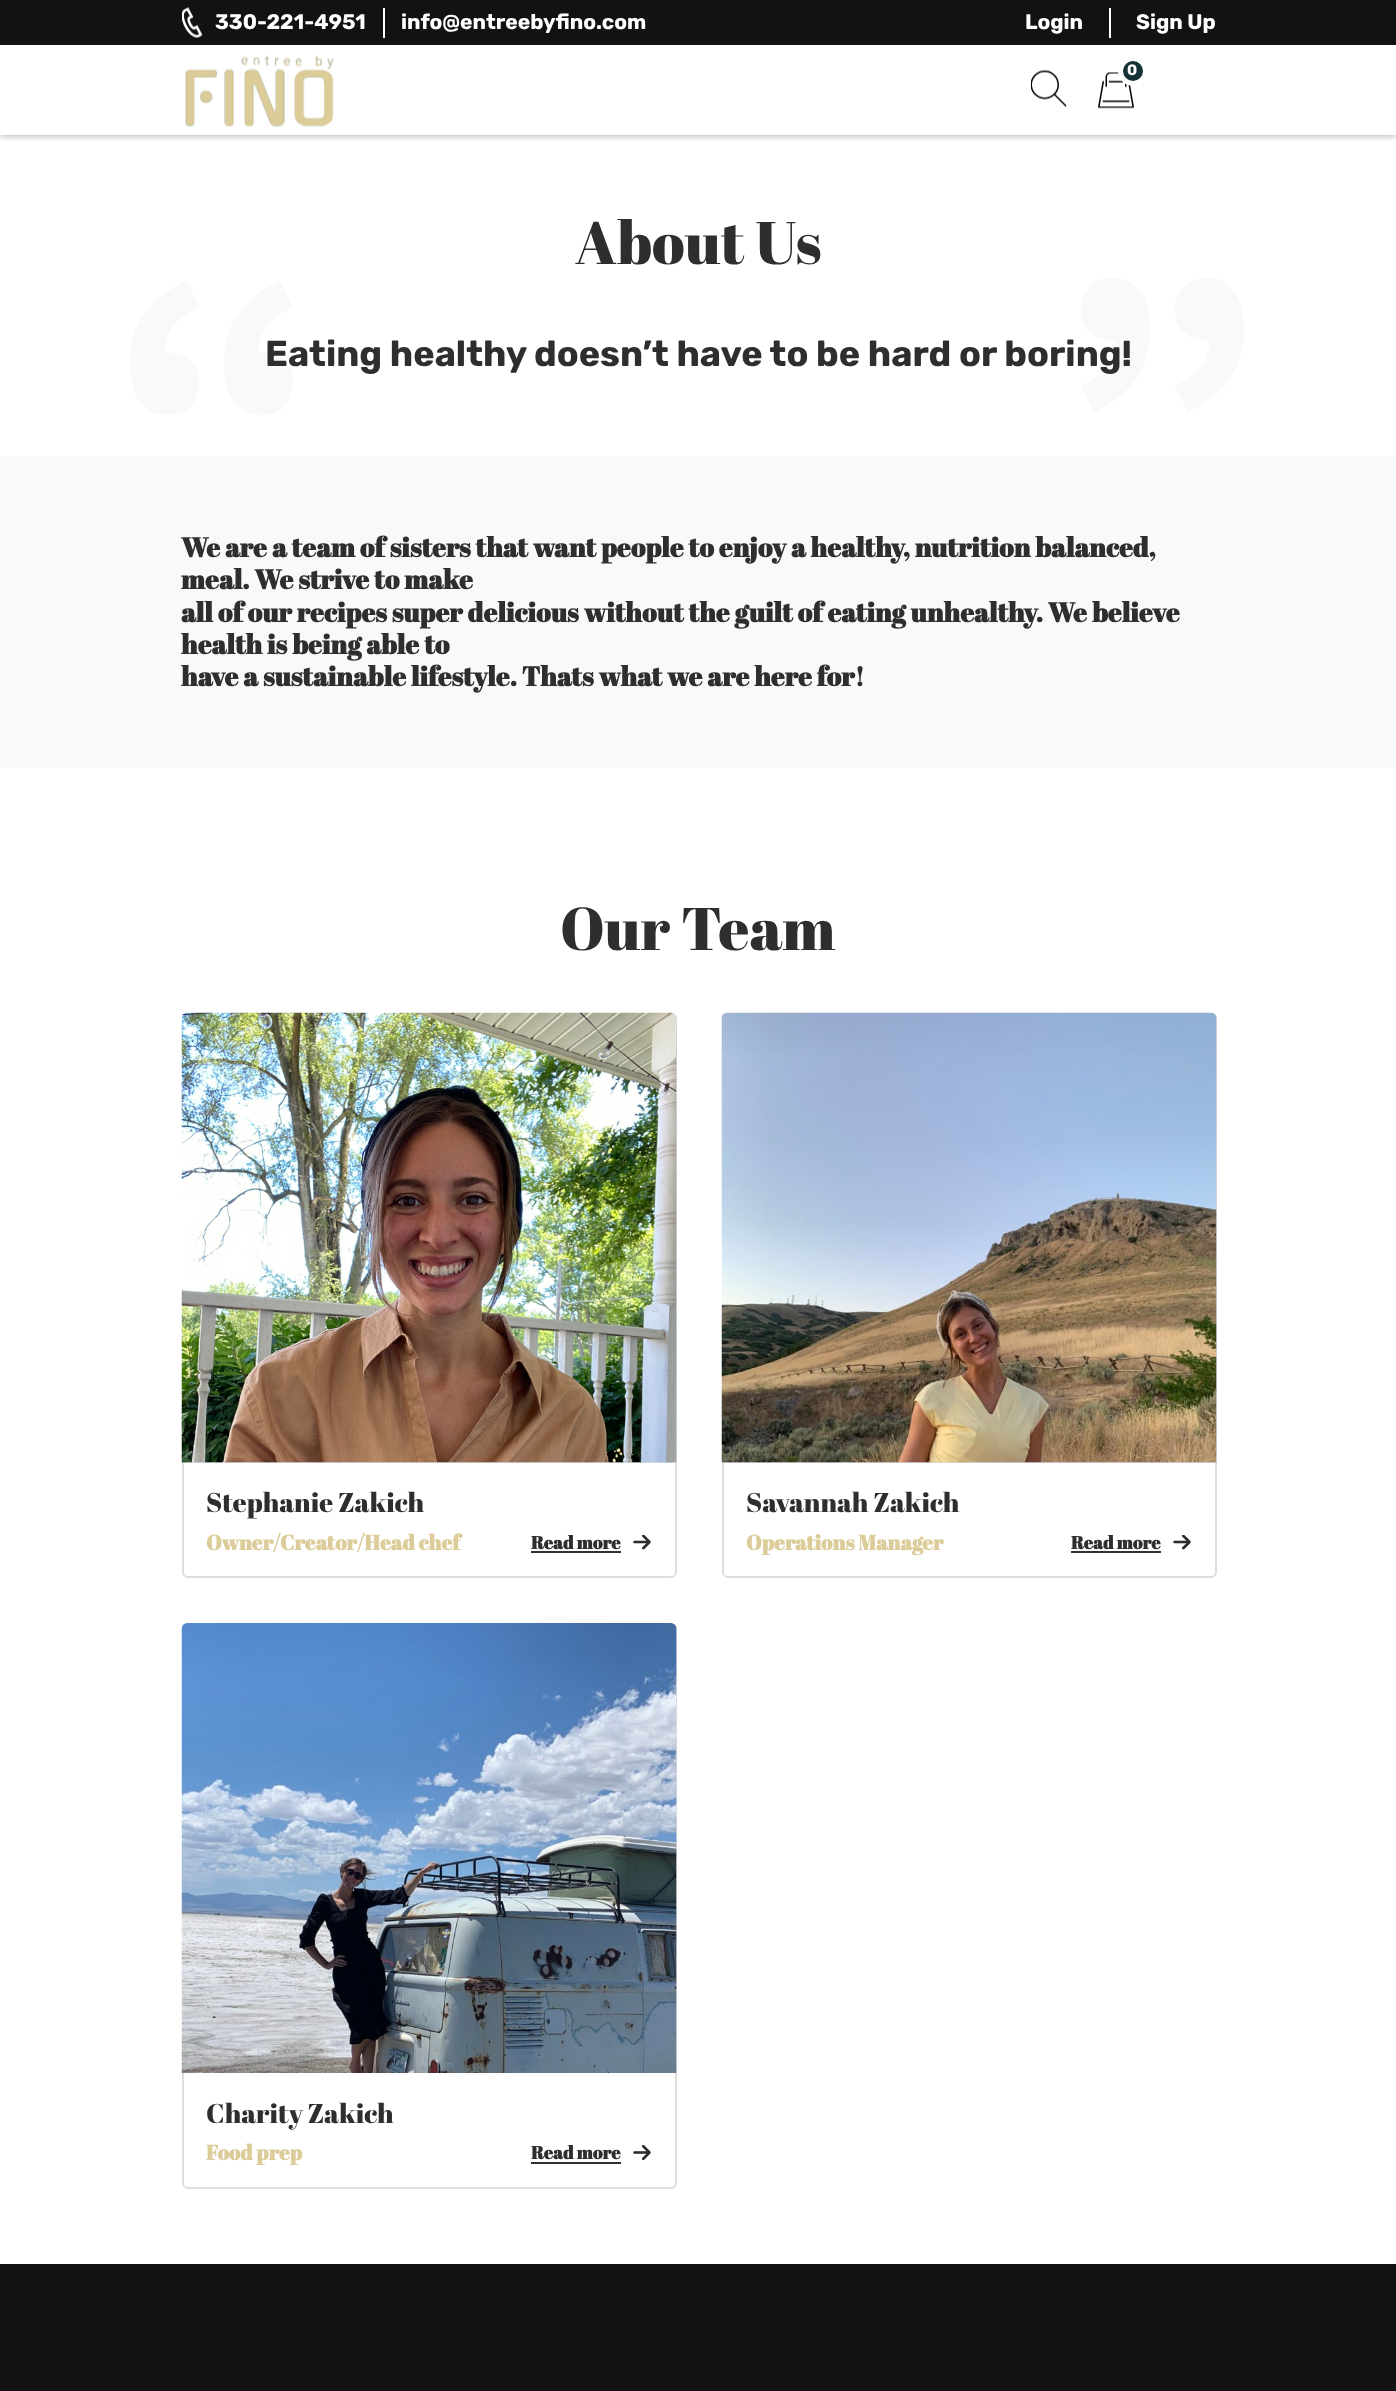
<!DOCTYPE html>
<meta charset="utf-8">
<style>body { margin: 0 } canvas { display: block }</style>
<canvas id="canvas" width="1396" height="2391"></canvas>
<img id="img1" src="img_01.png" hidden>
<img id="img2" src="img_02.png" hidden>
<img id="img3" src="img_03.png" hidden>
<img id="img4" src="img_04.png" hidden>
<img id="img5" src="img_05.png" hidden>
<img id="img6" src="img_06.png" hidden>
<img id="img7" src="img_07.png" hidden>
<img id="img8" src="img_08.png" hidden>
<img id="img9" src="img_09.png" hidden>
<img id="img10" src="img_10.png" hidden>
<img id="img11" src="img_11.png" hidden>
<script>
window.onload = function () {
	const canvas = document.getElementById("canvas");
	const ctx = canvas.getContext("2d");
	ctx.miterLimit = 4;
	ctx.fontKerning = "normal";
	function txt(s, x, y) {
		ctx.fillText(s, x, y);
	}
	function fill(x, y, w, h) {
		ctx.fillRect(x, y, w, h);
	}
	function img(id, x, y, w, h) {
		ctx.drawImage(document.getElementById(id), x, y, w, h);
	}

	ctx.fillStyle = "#FFFFFF";
	fill(0, 0, 1396, 2391);
	ctx.save();
	ctx.beginPath();
	ctx.rect(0, 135, 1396, 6);
	ctx.clip();
	ctx.fillStyle = "rgba(18, 18, 18, 0.5)";
	ctx.filter = "blur(4px)";
	ctx.beginPath();
	ctx.rect(0, -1, 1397, 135);
	ctx.fill();
	ctx.filter = "none";
	ctx.restore();
	ctx.fillStyle = "#121212";
	fill(0, 0, 1396, 45);
	img("img1", 182, 7, 21, 31);
	ctx.fillStyle = "#FFFFFF";
	fill(383, 8, 2, 30);
	fill(1109, 8, 2, 30);
	img("img2", 185, 55, 149, 72);
	img("img3", 1031, 70, 36, 37);
	img("img4", 1098, 72, 36, 37);
	ctx.fillStyle = "#153237";
	ctx.beginPath();
	ctx.arc(1133, 71, 12.5, 0, Math.PI * 2);
	ctx.fill();
	ctx.strokeStyle = "#FFFFFF";
	ctx.lineWidth = 5;
	ctx.stroke();
	img("img5", 130, 281, 163, 134);
	img("img6", 1081, 278, 163, 134);
	ctx.fillStyle = "#F8F9FB";
	fill(0, 456, 1396, 312);
	ctx.beginPath();
	ctx.roundRect(183, 1014, 493, 563, 5);
	ctx.strokeStyle = "#DEDEDE";
	ctx.lineWidth = 2;
	ctx.stroke();
	ctx.fillStyle = "#D4D7DE";
	ctx.beginPath();
	ctx.roundRect(182, 1013, 495, 450, [6, 6, 0, 0]);
	ctx.fill();
	img("img7", 181, 1012, 496, 451);
	ctx.fillStyle = "#303030";
	fill(531, 1551, 90, 2);
	img("img8", 633, 1535, 18, 15);
	ctx.beginPath();
	ctx.roundRect(723, 1014, 493, 563, 5);
	ctx.stroke();
	ctx.fillStyle = "#D4D7DE";
	ctx.beginPath();
	ctx.roundRect(722, 1013, 495, 450, [6, 6, 0, 0]);
	ctx.fill();
	img("img9", 721, 1012, 496, 451);
	ctx.fillStyle = "#303030";
	fill(1071, 1551, 90, 2);
	img("img8", 1173, 1535, 18, 15);
	ctx.beginPath();
	ctx.roundRect(183, 1624, 493, 564, 5);
	ctx.stroke();
	ctx.fillStyle = "#D4D7DE";
	ctx.beginPath();
	ctx.roundRect(182, 1623, 495, 450, [6, 6, 0, 0]);
	ctx.fill();
	img("img10", 181, 1623, 496, 450);
	ctx.fillStyle = "#303030";
	fill(531, 2162, 90, 2);
	img("img11", 633, 2145, 18, 15);
	ctx.fillStyle = "#121212";
	fill(0, 2264, 1396, 127);
	ctx.font = "bold 21px Rubik";
	ctx.fillStyle = "#FFFFFF";
	txt("330-221-4951", 215, 29);
	txt("info@entreebyfino.com", 401, 29);
	txt("Login", 1025, 29);
	txt("Sign Up", 1136, 29);
	ctx.font = "bold 15px Rubik";
	txt("0", 1127, 75);
	ctx.font = "60px Abril Fatface";
	ctx.fillStyle = "#2E2E2E";
	txt("About Us", 575, 264);
	ctx.font = "bold 36px Rubik";
	txt("Eating healthy doesn’t have to be hard or boring!", 265, 366);
	ctx.font = "bold 27px Abril Fatface";
	txt("We are a team of sisters that want people to enjoy a healthy, nutrition balanced,", 181, 557);
	txt("meal. We strive to make", 181, 589);
	txt("all of our recipes super delicious without the guilt of eating unhealthy. We believe", 181, 622);
	txt("health is being able to", 181, 654);
	txt("have a sustainable lifestyle. Thats what we are here for!", 181, 686);
	ctx.font = "60px Abril Fatface";
	txt("Our Team", 560, 950);
	ctx.font = "27px Abril Fatface";
	txt("Stephanie Zakich", 206, 1512);
	ctx.font = "bold 21px Abril Fatface";
	ctx.fillStyle = "#DCCC99";
	txt("Owner/Creator/Head chef", 206, 1550);
	ctx.font = "bold 18px Abril Fatface";
	ctx.fillStyle = "#2E2E2E";
	txt("Read more", 531, 1549);
	ctx.font = "27px Abril Fatface";
	txt("Savannah Zakich", 746, 1512);
	ctx.font = "bold 21px Abril Fatface";
	ctx.fillStyle = "#DCCC99";
	txt("Operations Manager", 746, 1550);
	ctx.font = "bold 18px Abril Fatface";
	ctx.fillStyle = "#2E2E2E";
	txt("Read more", 1071, 1549);
	ctx.font = "27px Abril Fatface";
	txt("Charity Zakich", 206, 2123);
	ctx.font = "bold 21px Abril Fatface";
	ctx.fillStyle = "#DCCC99";
	txt("Food prep", 206, 2160);
	ctx.font = "bold 18px Abril Fatface";
	ctx.fillStyle = "#2E2E2E";
	txt("Read more", 531, 2159);
};
</script>
